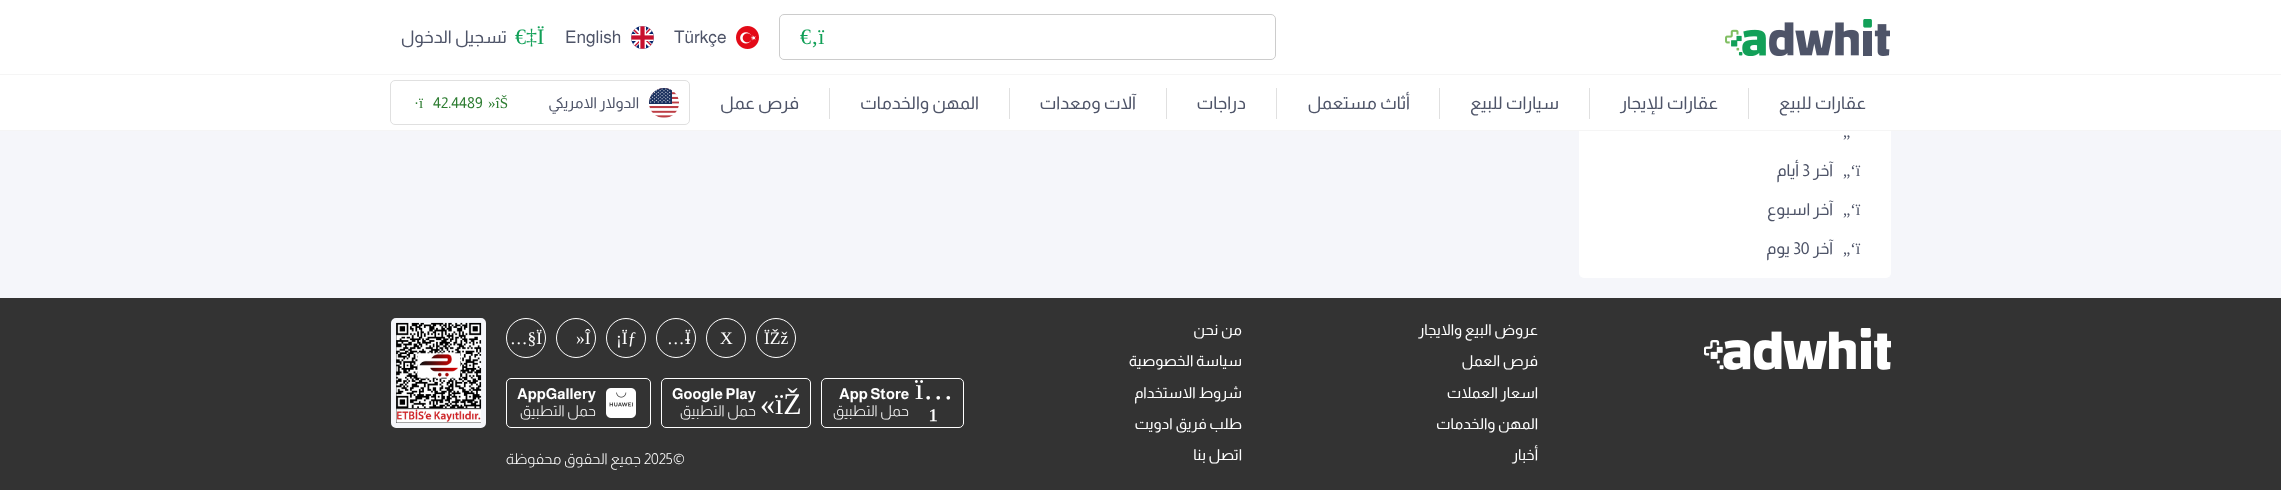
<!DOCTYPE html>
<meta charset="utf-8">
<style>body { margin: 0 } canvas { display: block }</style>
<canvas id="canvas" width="2281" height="490"></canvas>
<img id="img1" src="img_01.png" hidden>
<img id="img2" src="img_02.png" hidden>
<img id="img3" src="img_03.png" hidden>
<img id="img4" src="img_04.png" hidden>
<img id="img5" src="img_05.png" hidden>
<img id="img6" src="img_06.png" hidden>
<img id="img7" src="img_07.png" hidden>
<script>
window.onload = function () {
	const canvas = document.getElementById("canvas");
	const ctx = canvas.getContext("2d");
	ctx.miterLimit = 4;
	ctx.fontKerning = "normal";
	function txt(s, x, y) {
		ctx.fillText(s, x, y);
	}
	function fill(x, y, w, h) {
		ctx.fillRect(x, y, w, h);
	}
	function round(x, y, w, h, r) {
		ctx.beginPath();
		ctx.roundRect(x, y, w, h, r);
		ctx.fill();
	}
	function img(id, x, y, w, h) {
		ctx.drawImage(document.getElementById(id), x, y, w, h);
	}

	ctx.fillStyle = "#F5F6FA";
	fill(0, 0, 2281, 490);
	ctx.fillStyle = "#FFFFFF";
	round(1579, -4, 312, 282, 5);
	fill(0, 0, 2281, 74);
	ctx.fillStyle = "#F5F5F5";
	fill(0, 74, 2281, 1);
	img("img1", 1725, 19, 165, 37);
	ctx.beginPath();
	ctx.roundRect(779.5, 14.5, 496, 45, 4.5);
	ctx.strokeStyle = "#CCCCCC";
	ctx.stroke();
	img("img2", 736, 26, 23, 23);
	img("img3", 631, 26, 23, 23);
	ctx.fillStyle = "#FFFFFF";
	fill(0, 75, 2281, 55);
	ctx.fillStyle = "#F5F5F5";
	fill(0, 130, 2281, 1);
	ctx.fillStyle = "#E0E0E0";
	fill(1748, 88, 1, 31);
	fill(1589, 88, 1, 31);
	fill(1439, 88, 1, 31);
	fill(1276, 88, 1, 31);
	fill(1166, 88, 1, 31);
	fill(1009, 88, 1, 31);
	fill(829, 88, 1, 31);
	ctx.beginPath();
	ctx.roundRect(390.5, 80.5, 299, 44, 4.5);
	ctx.strokeStyle = "#E0E0E0";
	ctx.stroke();
	img("img4", 649, 88, 30, 30);
	ctx.fillStyle = "#333333";
	fill(0, 298, 2281, 192);
	img("img5", 1704, 328, 187, 42);
	ctx.beginPath();
	ctx.arc(776, 338, 19.5, 0, Math.PI * 2);
	ctx.strokeStyle = "#FFFFFF";
	ctx.stroke();
	ctx.beginPath();
	ctx.arc(726, 338, 19.5, 0, Math.PI * 2);
	ctx.stroke();
	ctx.beginPath();
	ctx.arc(676, 338, 19.5, 0, Math.PI * 2);
	ctx.stroke();
	ctx.beginPath();
	ctx.arc(626, 338, 19.5, 0, Math.PI * 2);
	ctx.stroke();
	ctx.beginPath();
	ctx.arc(576, 338, 19.5, 0, Math.PI * 2);
	ctx.stroke();
	ctx.beginPath();
	ctx.arc(526, 338, 19.5, 0, Math.PI * 2);
	ctx.stroke();
	ctx.beginPath();
	ctx.roundRect(821.5, 378.5, 142, 49, 4.5);
	ctx.stroke();
	ctx.beginPath();
	ctx.roundRect(661.5, 378.5, 149, 49, 4.5);
	ctx.stroke();
	ctx.beginPath();
	ctx.roundRect(506.5, 378.5, 144, 49, 4.5);
	ctx.stroke();
	img("img6", 606, 388, 30, 30);
	ctx.beginPath();
	ctx.roundRect(393.5, 320.5, 90, 105, 2.5);
	ctx.strokeStyle = "#F5F6FA";
	ctx.lineWidth = 5;
	ctx.stroke();
	img("img7", 396, 322, 86, 101);
	ctx.font = "22px Liberation Serif";
	ctx.fillStyle = "#12A058";
	txt("€‚ï", 800, 44);
	ctx.font = "17.5px Almarai";
	ctx.fillStyle = "#4E5468";
	txt("Türkçe", 674, 43);
	txt("English", 565, 43);
	ctx.font = "22px Liberation Serif";
	ctx.fillStyle = "#12A058";
	txt("€‡Ï", 515, 44);
	ctx.direction = "rtl";
	ctx.font = "17.5px Almarai";
	ctx.fillStyle = "#4E5468";
	txt("تسجيل الدخول", 507, 43);
	txt("عقارات للبيع", 1866, 109);
	txt("عقارات للإيجار", 1718, 109);
	txt("سيارات للبيع", 1559, 109);
	txt("أثاث مستعمل", 1410, 109);
	txt("دراجات", 1246, 109);
	txt("آلات ومعدات", 1136, 109);
	txt("المهن والخدمات", 979, 109);
	txt("فرص عمل", 799, 109);
	ctx.font = "15px Almarai";
	txt("الدولار الامريكي", 639, 108);
	ctx.direction = "ltr";
	ctx.font = "15px Liberation Serif";
	ctx.fillStyle = "#2E7D32";
	txt("»îŠ", 488, 108);
	ctx.font = "15px Almarai";
	txt("42.4489", 433, 108);
	ctx.font = "15px Liberation Serif";
	txt("·ï", 414, 108);
	ctx.font = "16.5px Liberation Serif";
	ctx.fillStyle = "#4E5468";
	txt("„", 1843, 137);
	txt("„‘ï", 1843, 176);
	ctx.direction = "rtl";
	ctx.font = "16.5px Almarai";
	txt("آخر", 1833, 176);
	ctx.direction = "ltr";
	txt("3", 1802, 176);
	ctx.direction = "rtl";
	txt("أيام", 1799, 176);
	ctx.direction = "ltr";
	ctx.font = "16.5px Liberation Serif";
	txt("„‘ï", 1843, 215);
	ctx.direction = "rtl";
	ctx.font = "16.5px Almarai";
	txt("آخر اسبوع", 1833, 215);
	ctx.direction = "ltr";
	ctx.font = "16.5px Liberation Serif";
	txt("„‘ï", 1843, 254);
	ctx.direction = "rtl";
	ctx.font = "16.5px Almarai";
	txt("آخر", 1833, 254);
	ctx.direction = "ltr";
	txt("30", 1793, 254);
	ctx.direction = "rtl";
	txt("يوم", 1790, 254);
	ctx.font = "15px Almarai";
	ctx.fillStyle = "#FFFFFF";
	txt("عروض البيع والايجار", 1538, 335);
	txt("فرص العمل", 1538, 366);
	txt("اسعار العملات", 1538, 398);
	txt("المهن والخدمات", 1538, 429);
	txt("أخبار", 1538, 460);
	txt("من نحن", 1242, 335);
	txt("سياسة الخصوصية", 1242, 366);
	txt("شروط الاستخدام", 1242, 398);
	txt("طلب فريق ادويت", 1242, 429);
	txt("اتصل بنا", 1242, 460);
	ctx.direction = "ltr";
	ctx.font = "17.5px Liberation Serif";
	txt("ÏŽž", 764, 344);
	txt("X", 720, 344);
	txt("…-", 667, 344);
	txt("Ï", 685, 344);
	txt("¡Ïƒ", 616, 344);
	txt("»Î", 576, 344);
	txt("…§Ï", 510, 344);
	ctx.font = "30px Liberation Serif";
	txt("ï…", 915, 399);
	txt("¹", 929, 429);
	ctx.font = "bold 15px Almarai";
	txt("App Store", 839, 399);
	ctx.direction = "rtl";
	ctx.font = "300 15px Almarai";
	txt("حمل التطبيق", 909, 416);
	ctx.direction = "ltr";
	ctx.font = "30px Liberation Serif";
	txt("«ïŽ", 760, 414);
	ctx.font = "bold 15px Almarai";
	txt("Google Play", 672, 399);
	ctx.direction = "rtl";
	ctx.font = "300 15px Almarai";
	txt("حمل التطبيق", 756, 416);
	ctx.direction = "ltr";
	ctx.font = "bold 15px Almarai";
	txt("AppGallery", 517, 399);
	ctx.direction = "rtl";
	ctx.font = "300 15px Almarai";
	txt("حمل التطبيق", 596, 416);
	ctx.direction = "ltr";
	txt("©", 673, 464);
	txt("2025", 644, 464);
	ctx.direction = "rtl";
	txt("جميع الحقوق محفوظة", 641, 464);
};
</script>
